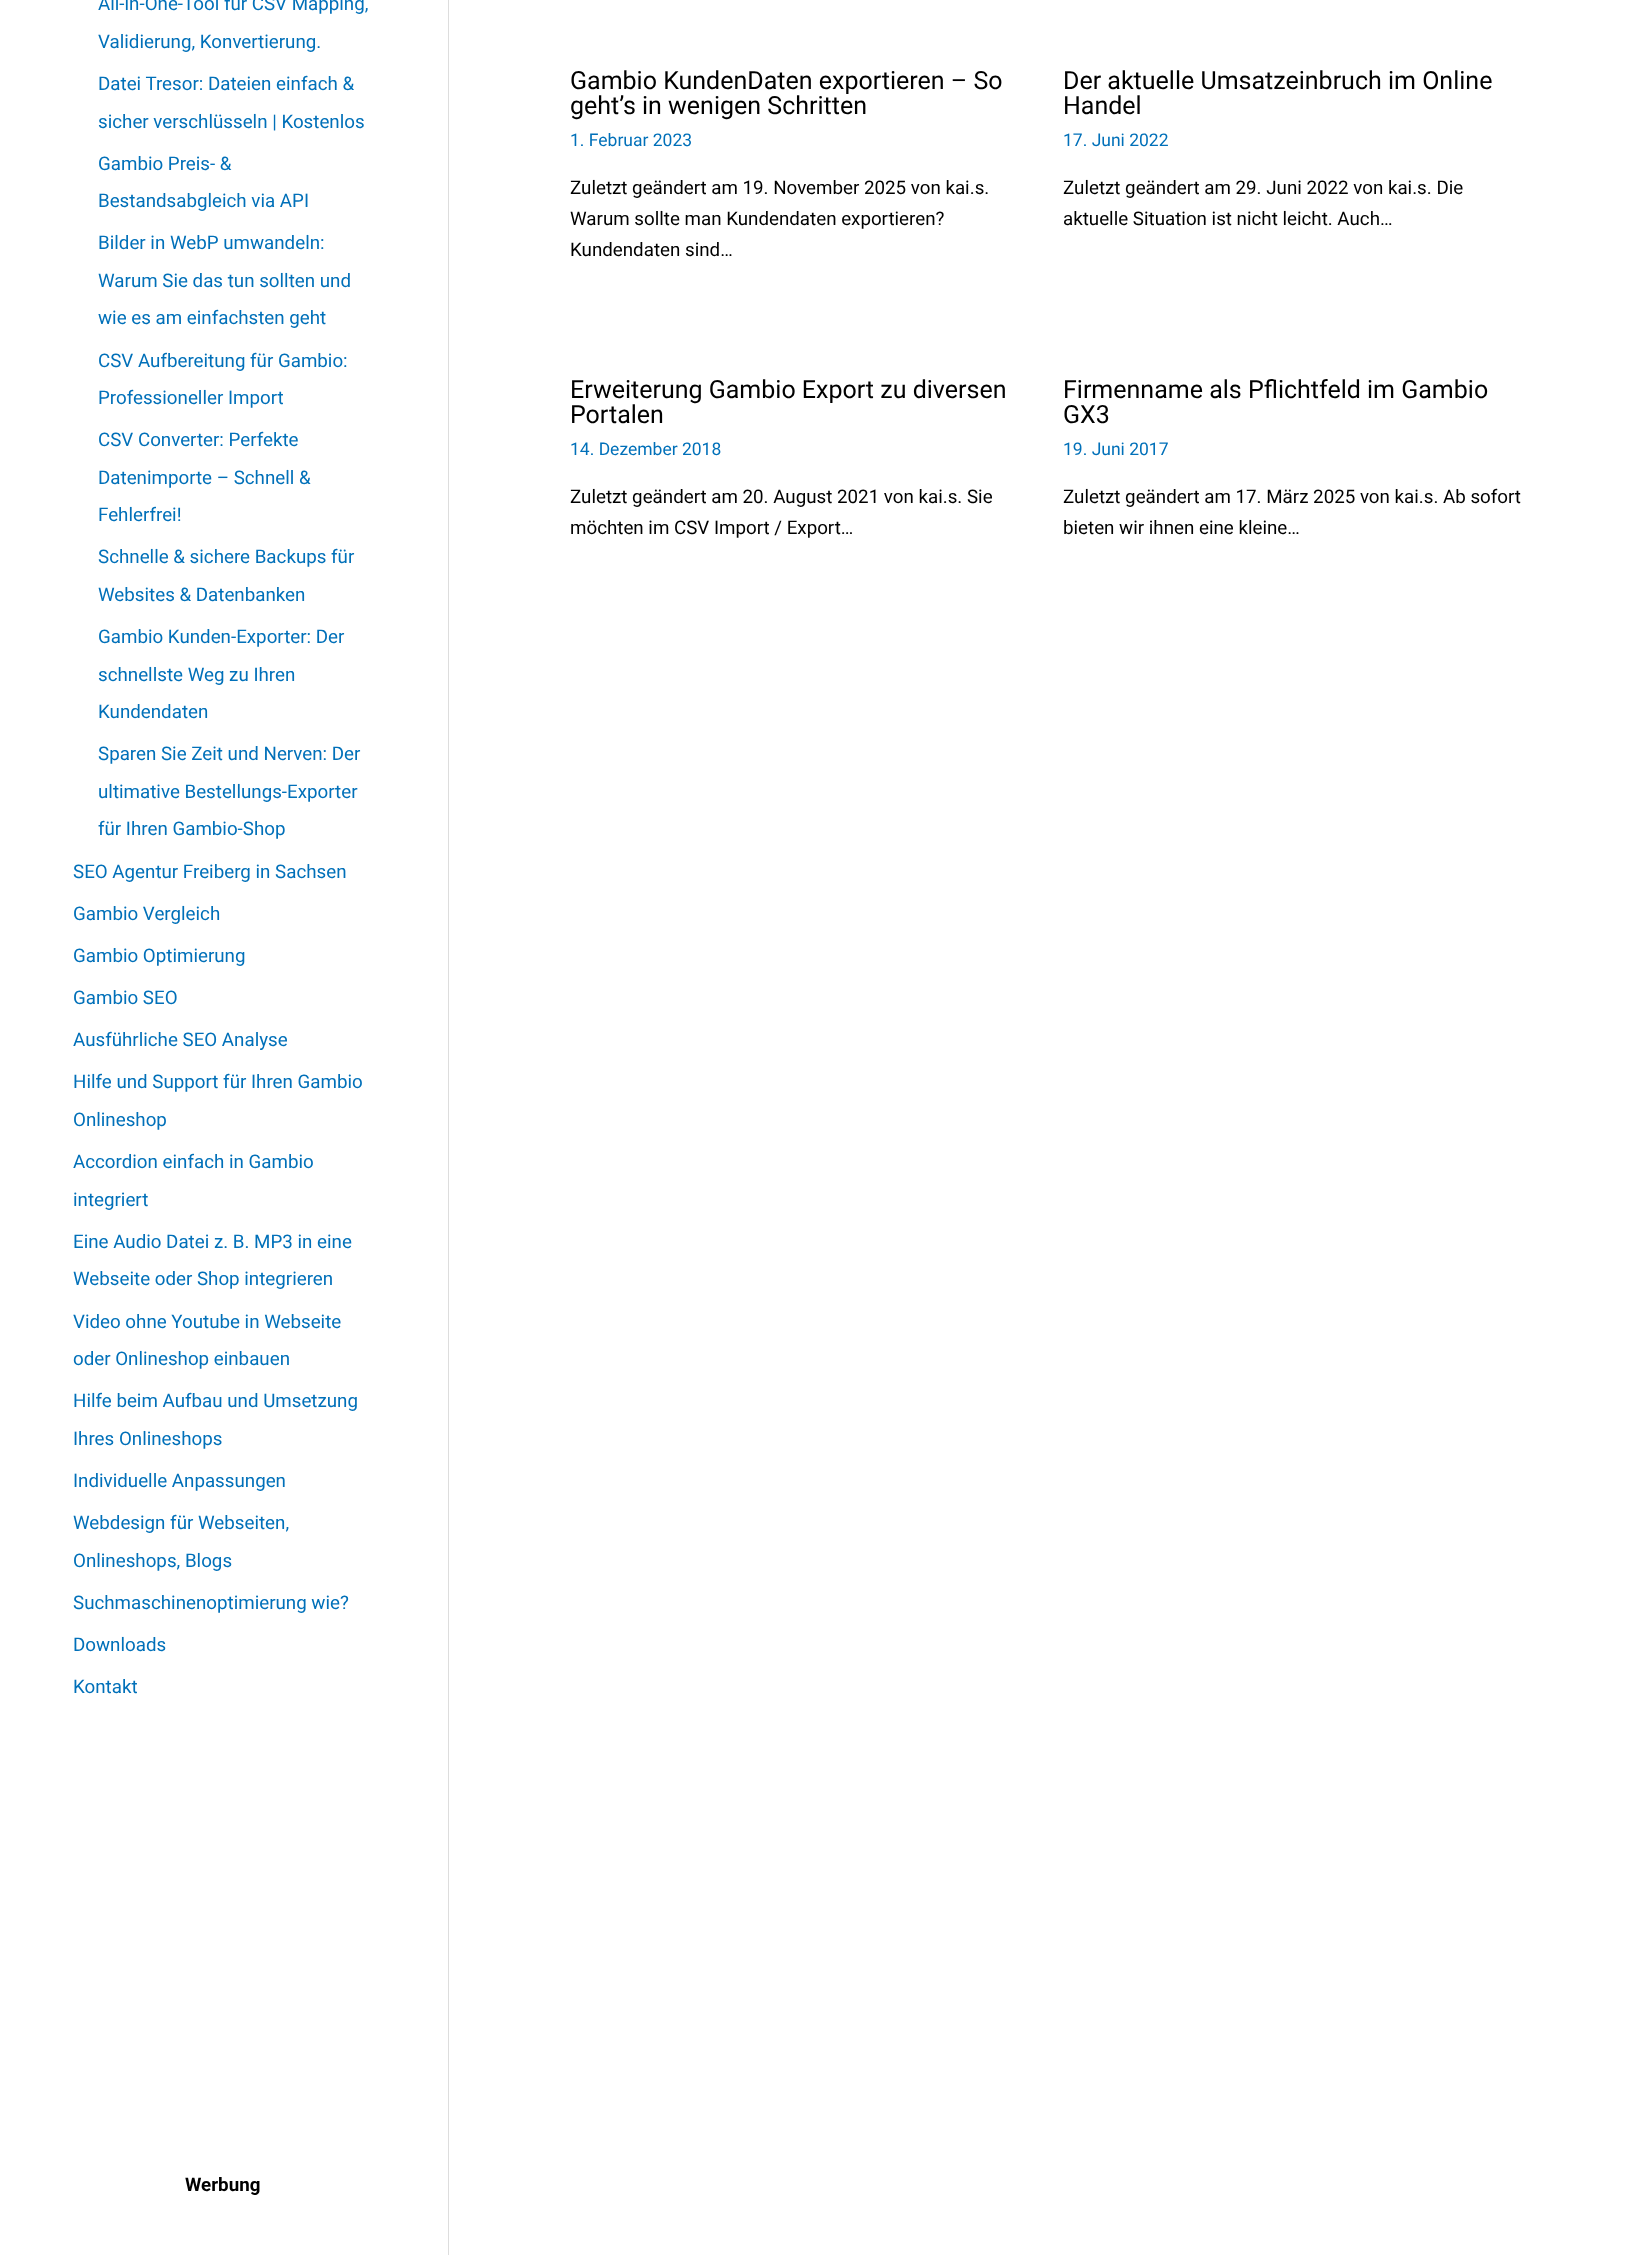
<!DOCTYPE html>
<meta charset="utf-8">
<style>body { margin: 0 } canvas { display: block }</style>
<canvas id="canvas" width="1646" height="2255"></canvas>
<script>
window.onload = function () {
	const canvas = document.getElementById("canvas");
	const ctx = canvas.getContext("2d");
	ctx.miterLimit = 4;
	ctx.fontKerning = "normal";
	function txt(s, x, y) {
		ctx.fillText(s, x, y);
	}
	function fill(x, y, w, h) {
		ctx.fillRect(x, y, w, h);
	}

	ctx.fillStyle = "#FFFFFF";
	fill(0, 0, 1646, 2255);
	ctx.fillStyle = "#DDDDDD";
	fill(448, 0, 1, 2255);
	ctx.font = "18.75px Roboto";
	ctx.fillStyle = "#0170B9";
	txt("All-in-One-Tool für CSV Mapping,", 98, 10);
	txt("Validierung, Konvertierung.", 98, 48);
	txt("Datei Tresor: Dateien einfach &", 98, 90);
	txt("sicher verschlüsseln | Kostenlos", 98, 128);
	txt("Gambio Preis- &", 98, 170);
	txt("Bestandsabgleich via API", 98, 207);
	txt("Bilder in WebP umwandeln:", 98, 249);
	txt("Warum Sie das tun sollten und", 98, 287);
	txt("wie es am einfachsten geht", 98, 324);
	txt("CSV Aufbereitung für Gambio:", 98, 367);
	txt("Professioneller Import", 98, 404);
	txt("CSV Converter: Perfekte", 98, 446);
	txt("Datenimporte – Schnell &", 98, 484);
	txt("Fehlerfrei!", 98, 521);
	txt("Schnelle & sichere Backups für", 98, 563);
	txt("Websites & Datenbanken", 98, 601);
	txt("Gambio Kunden-Exporter: Der", 98, 643);
	txt("schnellste Weg zu Ihren", 98, 681);
	txt("Kundendaten", 98, 718);
	txt("Sparen Sie Zeit und Nerven: Der", 98, 760);
	txt("ultimative Bestellungs-Exporter", 98, 798);
	txt("für Ihren Gambio-Shop", 98, 835);
	txt("SEO Agentur Freiberg in Sachsen", 73, 878);
	txt("Gambio Vergleich", 73, 920);
	txt("Gambio Optimierung", 73, 962);
	txt("Gambio SEO", 73, 1004);
	txt("Ausführliche SEO Analyse", 73, 1046);
	txt("Hilfe und Support für Ihren Gambio", 73, 1088);
	txt("Onlineshop", 73, 1126);
	txt("Accordion einfach in Gambio", 73, 1168);
	txt("integriert", 73, 1206);
	txt("Eine Audio Datei z. B. MP3 in eine", 73, 1248);
	txt("Webseite oder Shop integrieren", 73, 1285);
	txt("Video ohne Youtube in Webseite", 73, 1328);
	txt("oder Onlineshop einbauen", 73, 1365);
	txt("Hilfe beim Aufbau und Umsetzung", 73, 1407);
	txt("Ihres Onlineshops", 73, 1445);
	txt("Individuelle Anpassungen", 73, 1487);
	txt("Webdesign für Webseiten,", 73, 1529);
	txt("Onlineshops, Blogs", 73, 1567);
	txt("Suchmaschinenoptimierung wie?", 73, 1609);
	txt("Downloads", 73, 1651);
	txt("Kontakt", 73, 1693);
	ctx.font = "bold 18.75px Roboto";
	ctx.fillStyle = "#000000";
	txt("Werbung", 185, 2191);
	ctx.font = "25px Roboto";
	txt("Gambio KundenDaten exportieren – So", 570, 89);
	txt("geht’s in wenigen Schritten", 570, 114);
	ctx.font = "17.5px Roboto";
	ctx.fillStyle = "#0170B9";
	txt("1. Februar 2023", 570, 146);
	ctx.font = "18.75px Roboto";
	ctx.fillStyle = "#000000";
	txt("Zuletzt geändert am 19. November 2025 von kai.s.", 570, 194);
	txt("Warum sollte man Kundendaten exportieren?", 570, 225);
	txt("Kundendaten sind…", 570, 256);
	ctx.font = "25px Roboto";
	txt("Der aktuelle Umsatzeinbruch im Online", 1063, 89);
	txt("Handel", 1063, 114);
	ctx.font = "17.5px Roboto";
	ctx.fillStyle = "#0170B9";
	txt("17. Juni 2022", 1063, 146);
	ctx.font = "18.75px Roboto";
	ctx.fillStyle = "#000000";
	txt("Zuletzt geändert am 29. Juni 2022 von kai.s. Die", 1063, 194);
	txt("aktuelle Situation ist nicht leicht. Auch…", 1063, 225);
	ctx.font = "25px Roboto";
	txt("Erweiterung Gambio Export zu diversen", 570, 398);
	txt("Portalen", 570, 423);
	ctx.font = "17.5px Roboto";
	ctx.fillStyle = "#0170B9";
	txt("14. Dezember 2018", 570, 455);
	ctx.font = "18.75px Roboto";
	ctx.fillStyle = "#000000";
	txt("Zuletzt geändert am 20. August 2021 von kai.s. Sie", 570, 503);
	txt("möchten im CSV Import / Export…", 570, 534);
	ctx.font = "25px Roboto";
	txt("Firmenname als Pflichtfeld im Gambio", 1063, 398);
	txt("GX3", 1063, 423);
	ctx.font = "17.5px Roboto";
	ctx.fillStyle = "#0170B9";
	txt("19. Juni 2017", 1063, 455);
	ctx.font = "18.75px Roboto";
	ctx.fillStyle = "#000000";
	txt("Zuletzt geändert am 17. März 2025 von kai.s. Ab sofort", 1063, 503);
	txt("bieten wir ihnen eine kleine…", 1063, 534);
};
</script>
